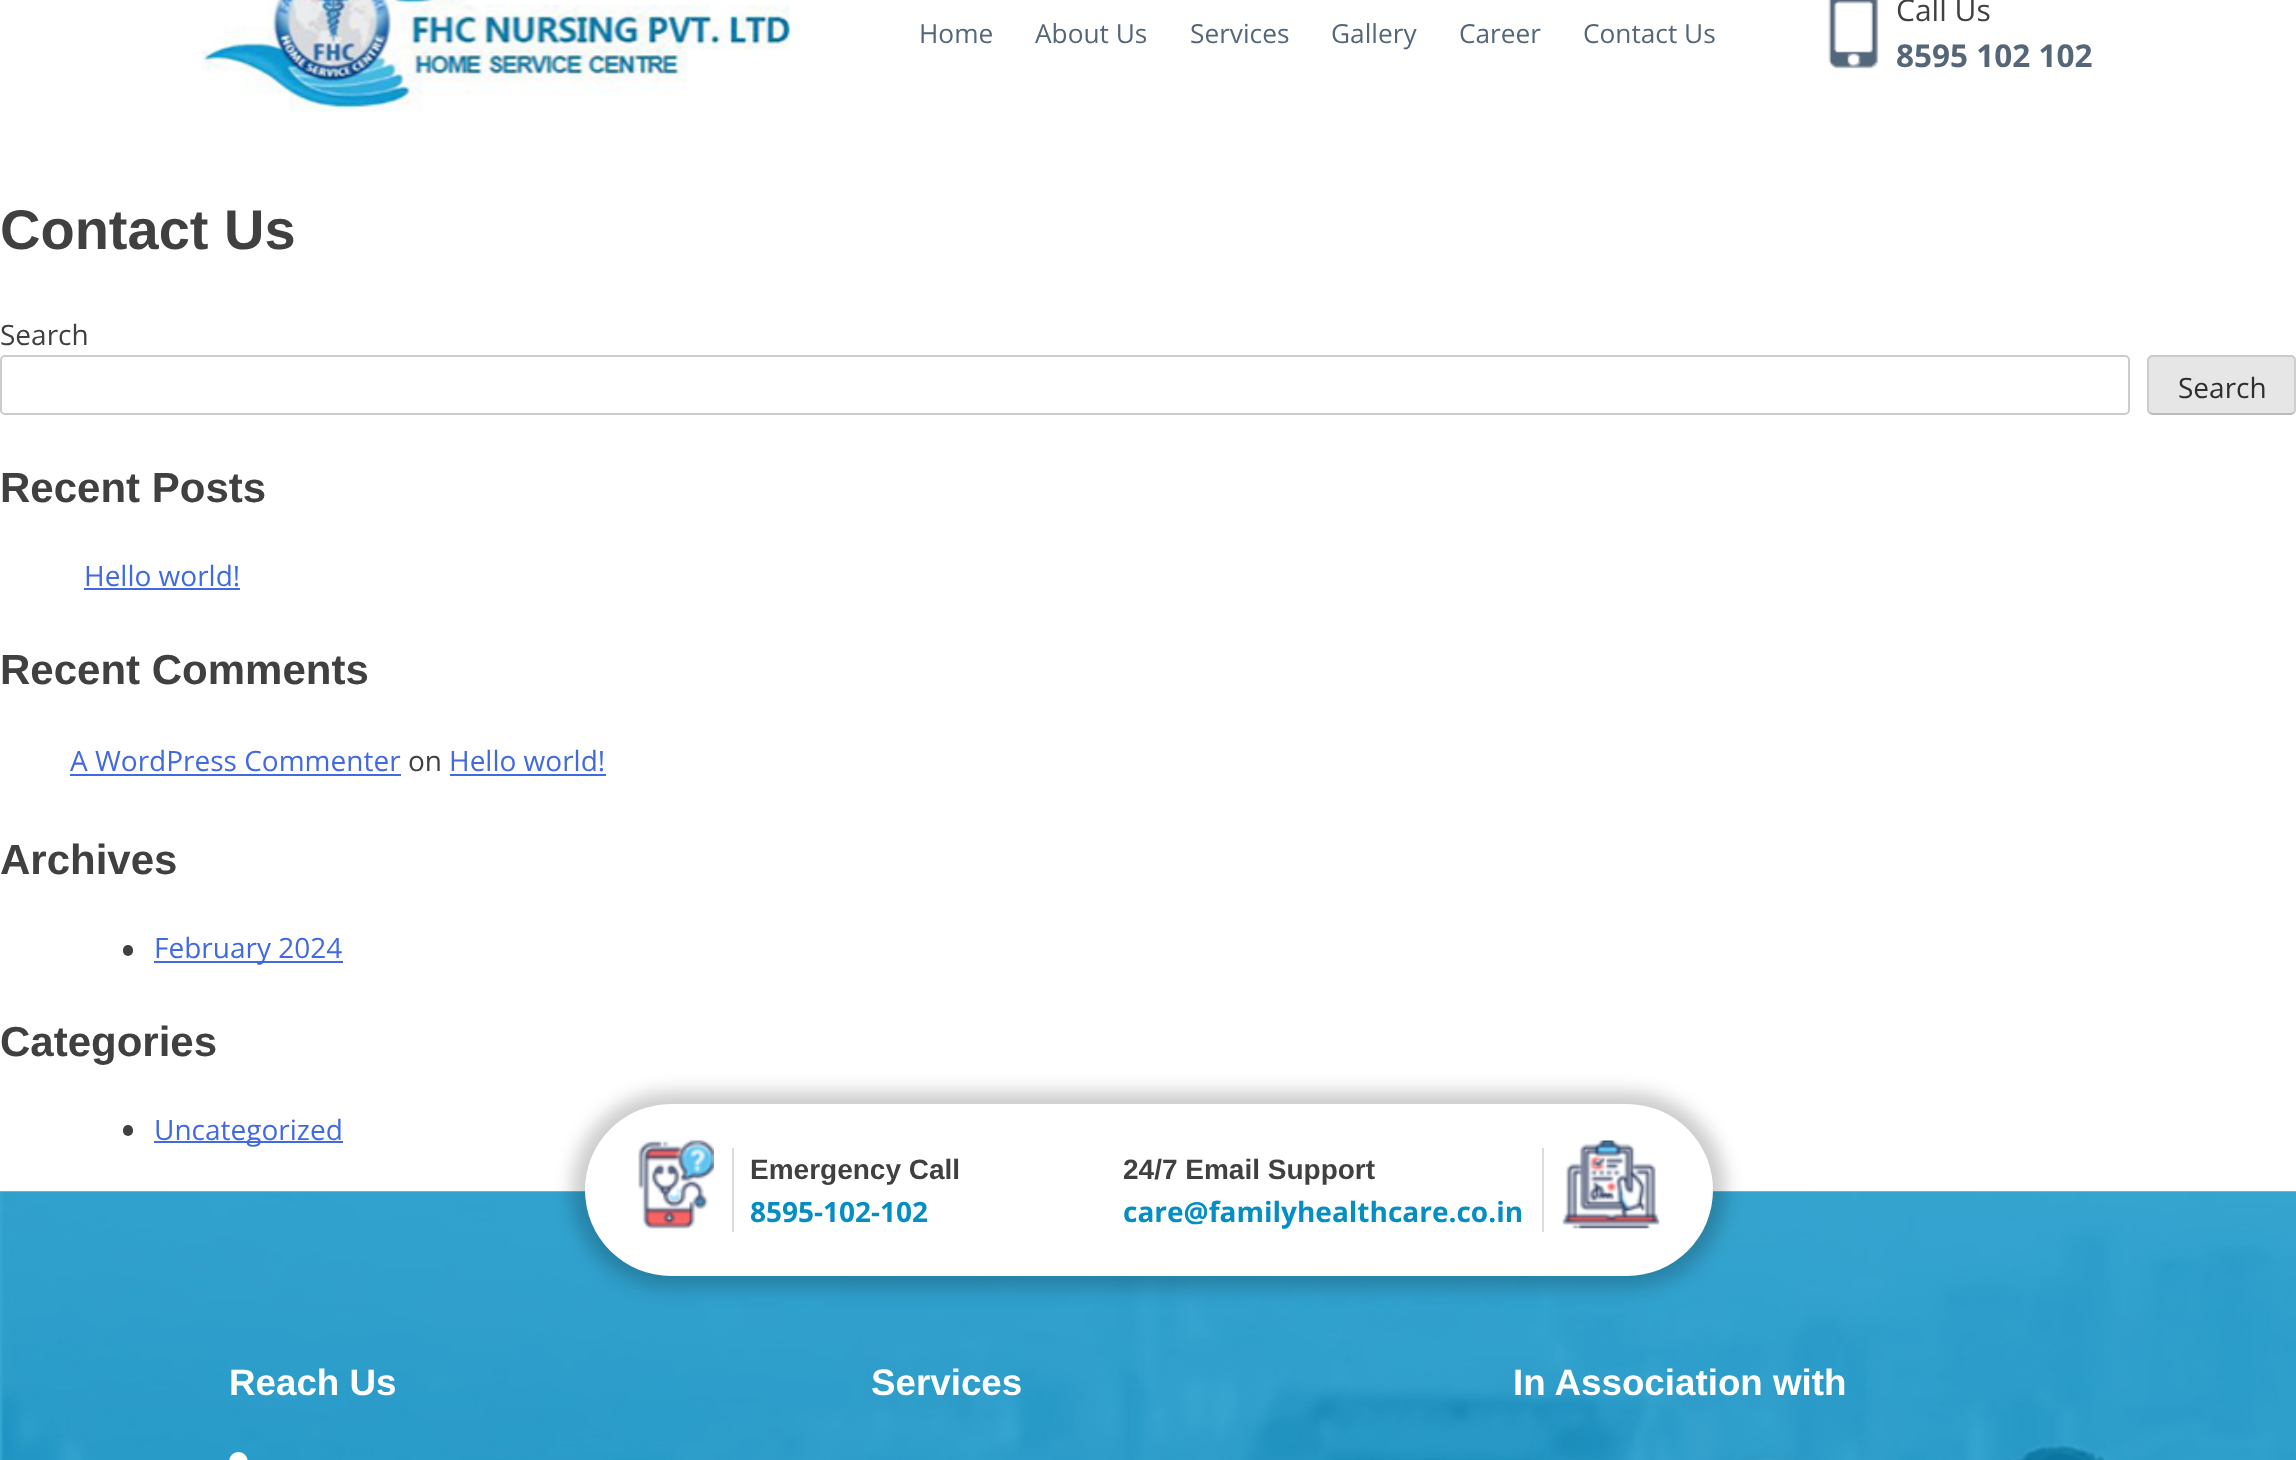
<!DOCTYPE html>
<meta charset="utf-8">
<style>body { margin: 0 } canvas { display: block }</style>
<canvas id="canvas" width="2296" height="1460"></canvas>
<img id="img1" src="img_01.png" hidden>
<img id="img2" src="img_02.png" hidden>
<img id="img3" src="img_03.png" hidden>
<img id="img4" src="img_04.png" hidden>
<img id="img5" src="img_05.png" hidden>
<img id="img6" src="img_06.png" hidden>
<script>
window.onload = function () {
	const canvas = document.getElementById("canvas");
	const ctx = canvas.getContext("2d");
	ctx.miterLimit = 4;
	ctx.fontKerning = "normal";
	function txt(s, x, y) {
		ctx.fillText(s, x, y);
	}
	function fill(x, y, w, h) {
		ctx.fillRect(x, y, w, h);
	}
	function round(x, y, w, h, r) {
		ctx.beginPath();
		ctx.roundRect(x, y, w, h, r);
		ctx.fill();
	}
	function img(id, x, y, w, h) {
		ctx.drawImage(document.getElementById(id), x, y, w, h);
	}

	ctx.fillStyle = "#FFFFFF";
	fill(0, 0, 2296, 1460);
	img("img1", 201, 0, 589, 112);
	img("img2", 1828, 0, 51, 69);
	ctx.beginPath();
	ctx.roundRect(1, 356, 2128, 58, 4);
	ctx.strokeStyle = "#CCCCCC";
	ctx.lineWidth = 2;
	ctx.stroke();
	ctx.fillStyle = "#E6E6E6";
	round(2147, 355, 149, 60, 5);
	ctx.beginPath();
	ctx.moveTo(2294, 412.5);
	ctx.lineTo(2291, 414);
	ctx.lineTo(2175.5, 414);
	ctx.lineTo(2152.5, 414);
	ctx.lineTo(2149.5, 412.5);
	ctx.strokeStyle = "#BBBBBB";
	ctx.lineWidth = 1.8;
	ctx.stroke();
	ctx.beginPath();
	ctx.moveTo(2149.5, 412.5);
	ctx.bezierCurveTo(2148.5, 412, 2148, 410.5, 2148, 409.5);
	ctx.lineTo(2148, 360.5);
	ctx.bezierCurveTo(2148, 359.5, 2148.5, 358, 2149.5, 357.5);
	ctx.bezierCurveTo(2150, 356.5, 2151.5, 356, 2152.5, 356);
	ctx.lineTo(2291, 356);
	ctx.bezierCurveTo(2292, 356, 2293, 356.5, 2294, 357.5);
	ctx.bezierCurveTo(2294.5, 358, 2295, 359.5, 2295, 360.5);
	ctx.lineTo(2295, 409.5);
	ctx.bezierCurveTo(2295, 410.5, 2294.5, 412, 2294, 412.5);
	ctx.strokeStyle = "#CCCCCC";
	ctx.stroke();
	ctx.fillStyle = "#4169E1";
	fill(84, 588, 156, 2);
	fill(70, 774, 331, 2);
	fill(450, 774, 156, 2);
	ctx.fillStyle = "#404040";
	round(123, 945, 10, 11, 5);
	ctx.fillStyle = "#4169E1";
	fill(154, 961, 189, 2);
	ctx.fillStyle = "#404040";
	round(123, 1125, 10, 11, 5);
	ctx.fillStyle = "#4169E1";
	fill(154, 1141, 189, 2);
	img("img3", 0, 1191, 2296, 269);
	ctx.fillStyle = "rgba(0, 0, 0, 0.2)";
	ctx.filter = "blur(9px)";
	ctx.beginPath();
	ctx.roundRect(572, 1092, 1154, 196, 98);
	ctx.fill();
	ctx.filter = "none";
	ctx.fillStyle = "#FFFFFF";
	round(585, 1104, 1128, 172, 86);
	img("img4", 638, 1140, 76, 89);
	ctx.fillStyle = "#DDDDDD";
	fill(732, 1148, 2, 84);
	fill(1542, 1148, 2, 84);
	img("img5", 1562, 1140, 98, 89);
	img("img6", 229, 1452, 19, 8);
	ctx.font = "26.25px Open Sans";
	ctx.fillStyle = "#546678";
	txt("Home", 919, 43);
	txt("About Us", 1035, 43);
	txt("Services", 1190, 43);
	txt("Gallery", 1331, 43);
	txt("Career", 1459, 43);
	txt("Contact Us", 1583, 43);
	ctx.font = "30px Open Sans";
	ctx.fillStyle = "#404040";
	txt("Call Us", 1896, 21);
	ctx.font = "bold 31.5px Open Sans";
	ctx.fillStyle = "#546678";
	txt("8595 102 102", 1896, 67);
	ctx.font = "bold 56px Liberation Sans";
	ctx.fillStyle = "#404040";
	txt("Contact Us", 0, 249);
	ctx.font = "28px Open Sans";
	txt("Search", 0, 345);
	ctx.fillStyle = "#2E2E2E";
	txt("Search", 2178, 398);
	ctx.font = "bold 42px Liberation Sans";
	ctx.fillStyle = "#404040";
	txt("Recent Posts", 0, 502);
	ctx.font = "28px Open Sans";
	ctx.fillStyle = "#4169E1";
	txt("Hello world!", 84, 586);
	ctx.font = "bold 42px Liberation Sans";
	ctx.fillStyle = "#404040";
	txt("Recent Comments", 0, 684);
	ctx.font = "28px Open Sans";
	ctx.fillStyle = "#4169E1";
	txt("A WordPress Commenter", 70, 771);
	ctx.fillStyle = "#404040";
	txt("on", 408, 771);
	ctx.fillStyle = "#4169E1";
	txt("Hello world!", 449, 771);
	ctx.font = "bold 42px Liberation Sans";
	ctx.fillStyle = "#404040";
	txt("Archives", 0, 874);
	ctx.font = "28px Open Sans";
	ctx.fillStyle = "#4169E1";
	txt("February 2024", 154, 958);
	ctx.font = "bold 42px Liberation Sans";
	ctx.fillStyle = "#404040";
	txt("Categories", 0, 1056);
	ctx.font = "28px Open Sans";
	ctx.fillStyle = "#4169E1";
	txt("Uncategorized", 154, 1140);
	ctx.font = "bold 28px Liberation Sans";
	ctx.fillStyle = "#404040";
	txt("Emergency Call", 750, 1179);
	ctx.font = "bold 28px Open Sans";
	ctx.fillStyle = "#048EC3";
	txt("8595-102-102", 750, 1222);
	ctx.font = "bold 28px Liberation Sans";
	ctx.fillStyle = "#404040";
	txt("24/7 Email Support", 1123, 1179);
	ctx.font = "bold 28px Open Sans";
	ctx.fillStyle = "#048EC3";
	txt("care@familyhealthcare.co.in", 1123, 1222);
	ctx.font = "bold 36.75px Liberation Sans";
	ctx.fillStyle = "#FFFFFF";
	txt("Reach Us", 229, 1395);
	txt("Services", 871, 1395);
	txt("In Association with", 1513, 1395);
};
</script>
